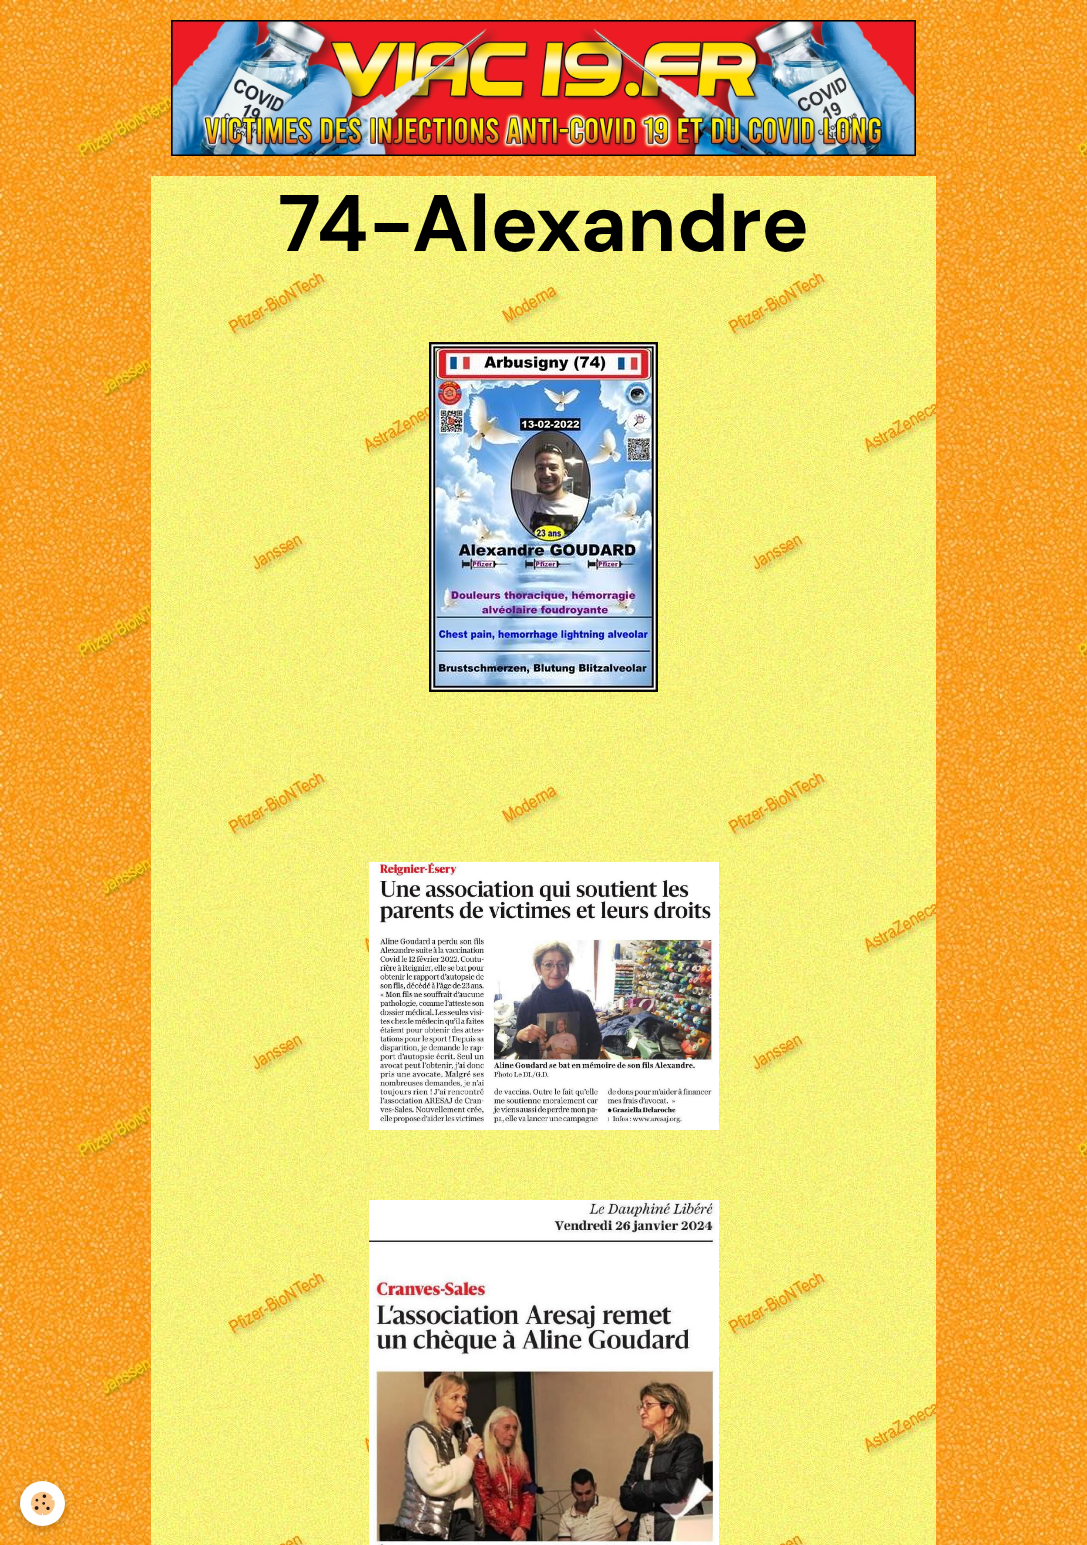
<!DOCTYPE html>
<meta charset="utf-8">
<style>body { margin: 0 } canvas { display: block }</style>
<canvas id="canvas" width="1087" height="1545"></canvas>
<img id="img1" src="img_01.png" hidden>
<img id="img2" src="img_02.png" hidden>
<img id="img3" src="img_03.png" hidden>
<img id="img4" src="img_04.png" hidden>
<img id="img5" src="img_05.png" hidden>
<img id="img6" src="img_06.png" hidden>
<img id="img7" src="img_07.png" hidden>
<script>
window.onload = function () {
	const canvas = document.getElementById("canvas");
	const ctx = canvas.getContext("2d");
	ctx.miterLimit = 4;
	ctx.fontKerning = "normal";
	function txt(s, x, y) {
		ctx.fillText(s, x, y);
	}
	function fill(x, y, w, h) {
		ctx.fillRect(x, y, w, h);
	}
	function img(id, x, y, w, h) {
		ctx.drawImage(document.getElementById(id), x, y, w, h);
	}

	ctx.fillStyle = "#FFFFFF";
	fill(0, 0, 1087, 1545);
	img("img1", 0, 0, 1087, 1545);
	img("img2", 171, 20, 745, 136);
	img("img3", 151, 176, 785, 1369);
	img("img4", 429, 342, 229, 350);
	img("img5", 369, 862, 350, 268);
	img("img6", 369, 1200, 350, 345);
	ctx.fillStyle = "rgba(0, 0, 0, 0.24)";
	ctx.filter = "blur(5px)";
	ctx.beginPath();
	ctx.roundRect(20, 1484, 45, 45, 22.5);
	ctx.fill();
	ctx.filter = "none";
	ctx.fillStyle = "#FFFFFF";
	ctx.beginPath();
	ctx.arc(42.5, 1503.5, 22.5, 0, Math.PI * 2);
	ctx.fill();
	img("img7", 30, 1491, 25, 25);
	ctx.font = "bold 80px DM Sans";
	ctx.fillStyle = "#000000";
	txt("74-Alexandre", 278, 251);
};
</script>
